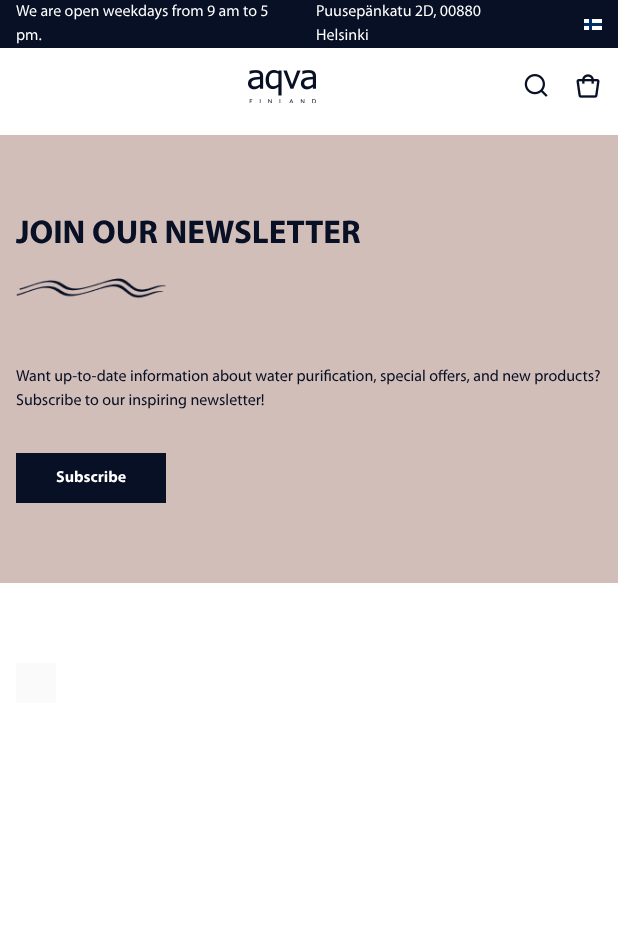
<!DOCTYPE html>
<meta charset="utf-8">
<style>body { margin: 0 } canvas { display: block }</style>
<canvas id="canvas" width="622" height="934"></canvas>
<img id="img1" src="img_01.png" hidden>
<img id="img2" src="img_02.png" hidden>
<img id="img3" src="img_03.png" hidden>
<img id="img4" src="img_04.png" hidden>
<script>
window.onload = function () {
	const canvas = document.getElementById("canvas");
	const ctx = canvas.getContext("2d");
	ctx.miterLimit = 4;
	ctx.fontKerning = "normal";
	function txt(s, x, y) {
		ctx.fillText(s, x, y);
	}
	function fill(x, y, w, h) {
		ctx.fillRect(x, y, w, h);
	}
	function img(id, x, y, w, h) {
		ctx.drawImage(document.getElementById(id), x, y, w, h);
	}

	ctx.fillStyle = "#FFFFFF";
	fill(0, 0, 622, 934);
	ctx.fillStyle = "#081025";
	fill(0, 0, 618, 48);
	ctx.fillStyle = "#FFFFFF";
	fill(584, 19, 18, 11);
	ctx.beginPath();
	ctx.moveTo(584, 24.5);
	ctx.lineTo(602, 24.5);
	ctx.moveTo(590.5, 19);
	ctx.lineTo(590.5, 30);
	ctx.strokeStyle = "#002F6C";
	ctx.lineWidth = 3;
	ctx.stroke();
	img("img1", 248, 70, 68, 33);
	img("img2", 524, 74, 24, 23);
	img("img3", 576, 74, 24, 24);
	ctx.fillStyle = "#D2BEB9";
	fill(0, 135, 618, 448);
	img("img4", 16, 278, 150, 21);
	ctx.fillStyle = "#081025";
	fill(16, 453, 150, 50);
	ctx.fillStyle = "#FAFAFA";
	fill(16, 663, 40, 40);
	ctx.font = "16px Myriad";
	ctx.fillStyle = "#FFFFFF";
	txt("We are open weekdays from 9 am to 5", 16, 16);
	txt("pm.", 16, 40);
	txt("Puusepänkatu 2D, 00880", 316, 16);
	txt("Helsinki", 316, 40);
	ctx.font = "bold 33px Myriad";
	ctx.fillStyle = "#081025";
	txt("JOIN OUR NEWSLETTER", 16, 243);
	ctx.font = "16px Myriad";
	txt("Want up-to-date information about water purification, special offers, and new products?", 16, 381);
	txt("Subscribe to our inspiring newsletter!", 16, 405);
	ctx.font = "bold 16px Myriad";
	ctx.fillStyle = "#FFFFFF";
	txt("Subscribe", 56, 482);
};
</script>
